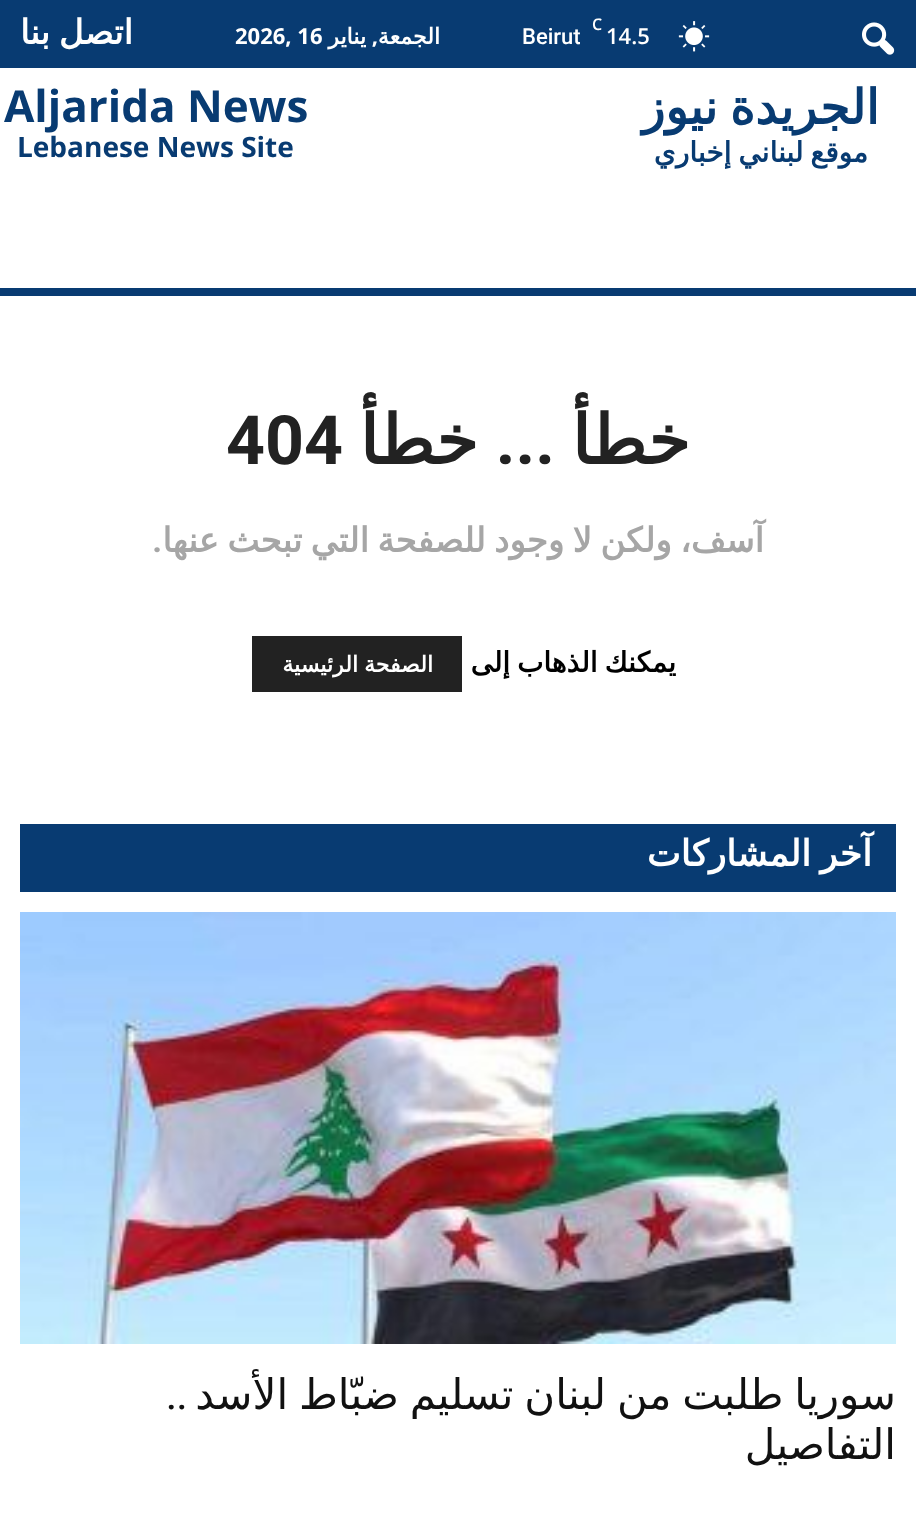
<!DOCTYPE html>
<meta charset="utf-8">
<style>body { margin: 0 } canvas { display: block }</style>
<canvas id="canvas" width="916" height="1518"></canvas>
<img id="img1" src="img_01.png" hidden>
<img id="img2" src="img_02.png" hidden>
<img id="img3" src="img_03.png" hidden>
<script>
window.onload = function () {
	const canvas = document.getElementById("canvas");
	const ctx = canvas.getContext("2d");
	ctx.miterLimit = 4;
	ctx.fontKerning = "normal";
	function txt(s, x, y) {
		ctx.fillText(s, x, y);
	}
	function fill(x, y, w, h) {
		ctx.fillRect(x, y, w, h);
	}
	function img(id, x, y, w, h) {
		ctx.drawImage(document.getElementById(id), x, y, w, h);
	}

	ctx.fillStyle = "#FFFFFF";
	fill(0, 0, 916, 1518);
	ctx.fillStyle = "#083B72";
	fill(0, 288, 916, 8);
	fill(0, 0, 916, 68);
	img("img1", 862, 22, 33, 33);
	img("img2", 678, 21, 32, 31);
	ctx.fillStyle = "#222222";
	fill(252, 636, 210, 56);
	ctx.fillStyle = "#083B72";
	fill(20, 824, 876, 68);
	img("img3", 20, 912, 876, 432);
	ctx.font = "600 16px Open Sans";
	ctx.fillStyle = "#FFFFFF";
	txt("C", 592, 30);
	ctx.font = "600 22px Open Sans";
	txt("14.5", 606, 44);
	ctx.font = "500 22px Roboto";
	txt("Beirut", 522, 44);
	ctx.direction = "rtl";
	ctx.font = "bold 22px DejaVu Sans";
	txt("الجمعة", 440, 44);
	ctx.font = "bold 22px Open Sans";
	txt(",", 378, 44);
	ctx.font = "bold 22px DejaVu Sans";
	txt("يناير", 366, 44);
	ctx.direction = "ltr";
	ctx.font = "bold 22px Open Sans";
	txt("2026, 16", 235, 44);
	ctx.wordSpacing = "-2px";
	ctx.direction = "rtl";
	ctx.font = "bold 34px DejaVu Sans";
	txt("اتصل بنا", 133, 44);
	ctx.wordSpacing = "-3px";
	ctx.font = "bold 48px DejaVu Sans";
	ctx.fillStyle = "#083B72";
	txt("الجريدة نيوز", 879, 124);
	ctx.wordSpacing = "-2px";
	ctx.font = "bold 28px DejaVu Sans";
	txt("موقع لبناني إخباري", 868, 162);
	ctx.wordSpacing = "0px";
	ctx.direction = "ltr";
	ctx.font = "bold 44px Open Sans";
	txt("Aljarida News", 4, 122);
	ctx.font = "bold 28px Open Sans";
	txt("Lebanese News Site", 17, 157);
	ctx.direction = "rtl";
	ctx.font = "bold 68px DejaVu Sans";
	ctx.fillStyle = "#222222";
	txt("خطأ", 690, 464);
	ctx.font = "bold 68px Roboto";
	txt("...", 555, 464);
	ctx.font = "bold 68px DejaVu Sans";
	txt("خطأ", 478, 464);
	ctx.direction = "ltr";
	ctx.font = "bold 68px Roboto";
	txt("404", 226, 464);
	ctx.wordSpacing = "-2.5px";
	ctx.direction = "rtl";
	ctx.font = "bold 34px DejaVu Sans";
	ctx.fillStyle = "#A6A6A6";
	txt("آسف، ولكن لا وجود للصفحة التي تبحث عنها", 764, 552);
	ctx.wordSpacing = "0px";
	ctx.font = "bold 34px Roboto";
	txt(".", 162, 552);
	ctx.wordSpacing = "-2px";
	ctx.font = "bold 28px DejaVu Sans";
	ctx.fillStyle = "#000000";
	txt("يمكنك الذهاب إلى", 676, 672);
	ctx.wordSpacing = "-1px";
	ctx.font = "bold 22px DejaVu Sans";
	ctx.fillStyle = "#FFFFFF";
	txt("الصفحة الرئيسية", 433, 672);
	ctx.wordSpacing = "-2.5px";
	ctx.font = "bold 36px DejaVu Sans";
	txt("آخر المشاركات", 872, 866);
	ctx.font = "42px DejaVu Sans";
	ctx.fillStyle = "#111111";
	txt("سوريا طلبت من لبنان تسليم ضبّاط الأسد", 896, 1409);
	ctx.wordSpacing = "0px";
	ctx.font = "42px Liberation Serif";
	txt("..", 187, 1409);
	ctx.font = "42px DejaVu Sans";
	txt("التفاصيل", 896, 1459);
};
</script>
